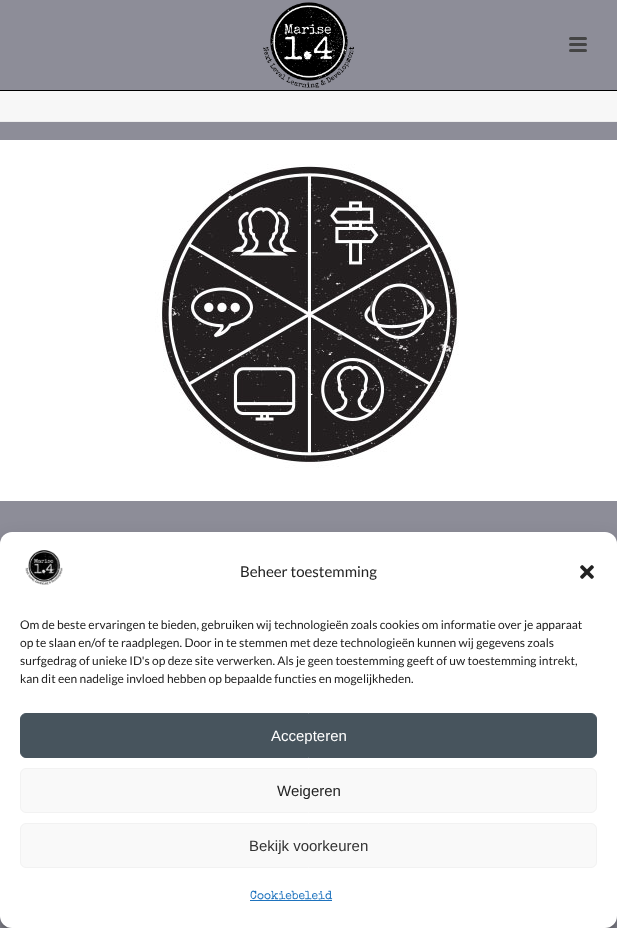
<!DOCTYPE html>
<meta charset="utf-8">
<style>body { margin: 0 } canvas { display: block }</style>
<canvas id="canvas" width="617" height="928"></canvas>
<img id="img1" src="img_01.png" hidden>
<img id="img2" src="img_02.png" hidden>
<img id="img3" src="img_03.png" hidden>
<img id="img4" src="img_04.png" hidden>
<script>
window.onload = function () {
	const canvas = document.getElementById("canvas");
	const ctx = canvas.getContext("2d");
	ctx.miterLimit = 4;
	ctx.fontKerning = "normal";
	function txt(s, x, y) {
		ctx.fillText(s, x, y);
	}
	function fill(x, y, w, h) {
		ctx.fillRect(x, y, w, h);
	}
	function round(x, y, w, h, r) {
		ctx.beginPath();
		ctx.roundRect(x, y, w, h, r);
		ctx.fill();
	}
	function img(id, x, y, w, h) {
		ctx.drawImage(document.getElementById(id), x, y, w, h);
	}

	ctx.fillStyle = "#8D8D98";
	fill(0, 0, 617, 928);
	ctx.fillStyle = "#F7F7F7";
	fill(0, 91, 617, 30);
	ctx.fillStyle = "#EDEDED";
	fill(0, 121, 617, 1);
	ctx.fillStyle = "#000000";
	fill(0, 90, 617, 1);
	img("img1", 263, 2, 91, 86);
	ctx.fillStyle = "#444444";
	round(569, 37, 18, 3, 1.5);
	round(569, 43, 18, 3, 1.5);
	round(569, 49, 18, 3, 1.5);
	ctx.fillStyle = "#FFFFFF";
	fill(0, 140, 617, 361);
	img("img2", 155, 164, 304, 304);
	ctx.fillStyle = "rgba(0, 0, 0, 0.23)";
	ctx.filter = "blur(3px)";
	ctx.beginPath();
	ctx.roundRect(0, 538, 617, 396, 12);
	ctx.fill();
	ctx.filter = "none";
	ctx.fillStyle = "rgba(0, 0, 0, 0.19)";
	ctx.filter = "blur(10px)";
	ctx.beginPath();
	ctx.roundRect(0, 542, 617, 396, 12);
	ctx.fill();
	ctx.filter = "none";
	ctx.fillStyle = "#FFFFFF";
	round(0, 532, 617, 396, 12);
	img("img3", 25, 550, 38, 35);
	img("img4", 580, 565, 14, 14);
	ctx.fillStyle = "#47545D";
	ctx.beginPath();
	ctx.roundRect(20.5, 713.5, 576, 44, 5.5);
	ctx.fill();
	ctx.strokeStyle = "#47545D";
	ctx.stroke();
	ctx.fillStyle = "#F9F9F9";
	ctx.beginPath();
	ctx.roundRect(20.5, 768.5, 576, 44, 5.5);
	ctx.fill();
	ctx.strokeStyle = "#F2F2F2";
	ctx.stroke();
	ctx.beginPath();
	ctx.roundRect(20.5, 823.5, 576, 44, 5.5);
	ctx.fill();
	ctx.stroke();
	ctx.fillStyle = "#1E73BE";
	fill(250, 900, 82, 1);
	ctx.font = "15px Lato";
	ctx.fillStyle = "#222222";
	txt("Beheer toestemming", 240, 577);
	ctx.font = "12px Lato";
	txt("Om de beste ervaringen te bieden, gebruiken wij technologieën zoals cookies om informatie over je apparaat", 20, 629);
	txt("op te slaan en/of te raadplegen. Door in te stemmen met deze technologieën kunnen wij gegevens zoals", 20, 647);
	txt("surfgedrag of unieke ID's op deze site verwerken. Als je geen toestemming geeft of uw toestemming intrekt,", 20, 665);
	txt("kan dit een nadelige invloed hebben op bepaalde functies en mogelijkheden.", 20, 683);
	ctx.font = "15px Liberation Sans";
	ctx.fillStyle = "#FFFFFF";
	txt("Accepteren", 271, 741);
	ctx.fillStyle = "#222222";
	txt("Weigeren", 277, 796);
	ctx.fillStyle = "#333333";
	txt("Bekijk voorkeuren", 249, 851);
	ctx.font = "12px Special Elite";
	ctx.fillStyle = "#1E73BE";
	txt("Cookiebeleid", 250, 899);
};
</script>
